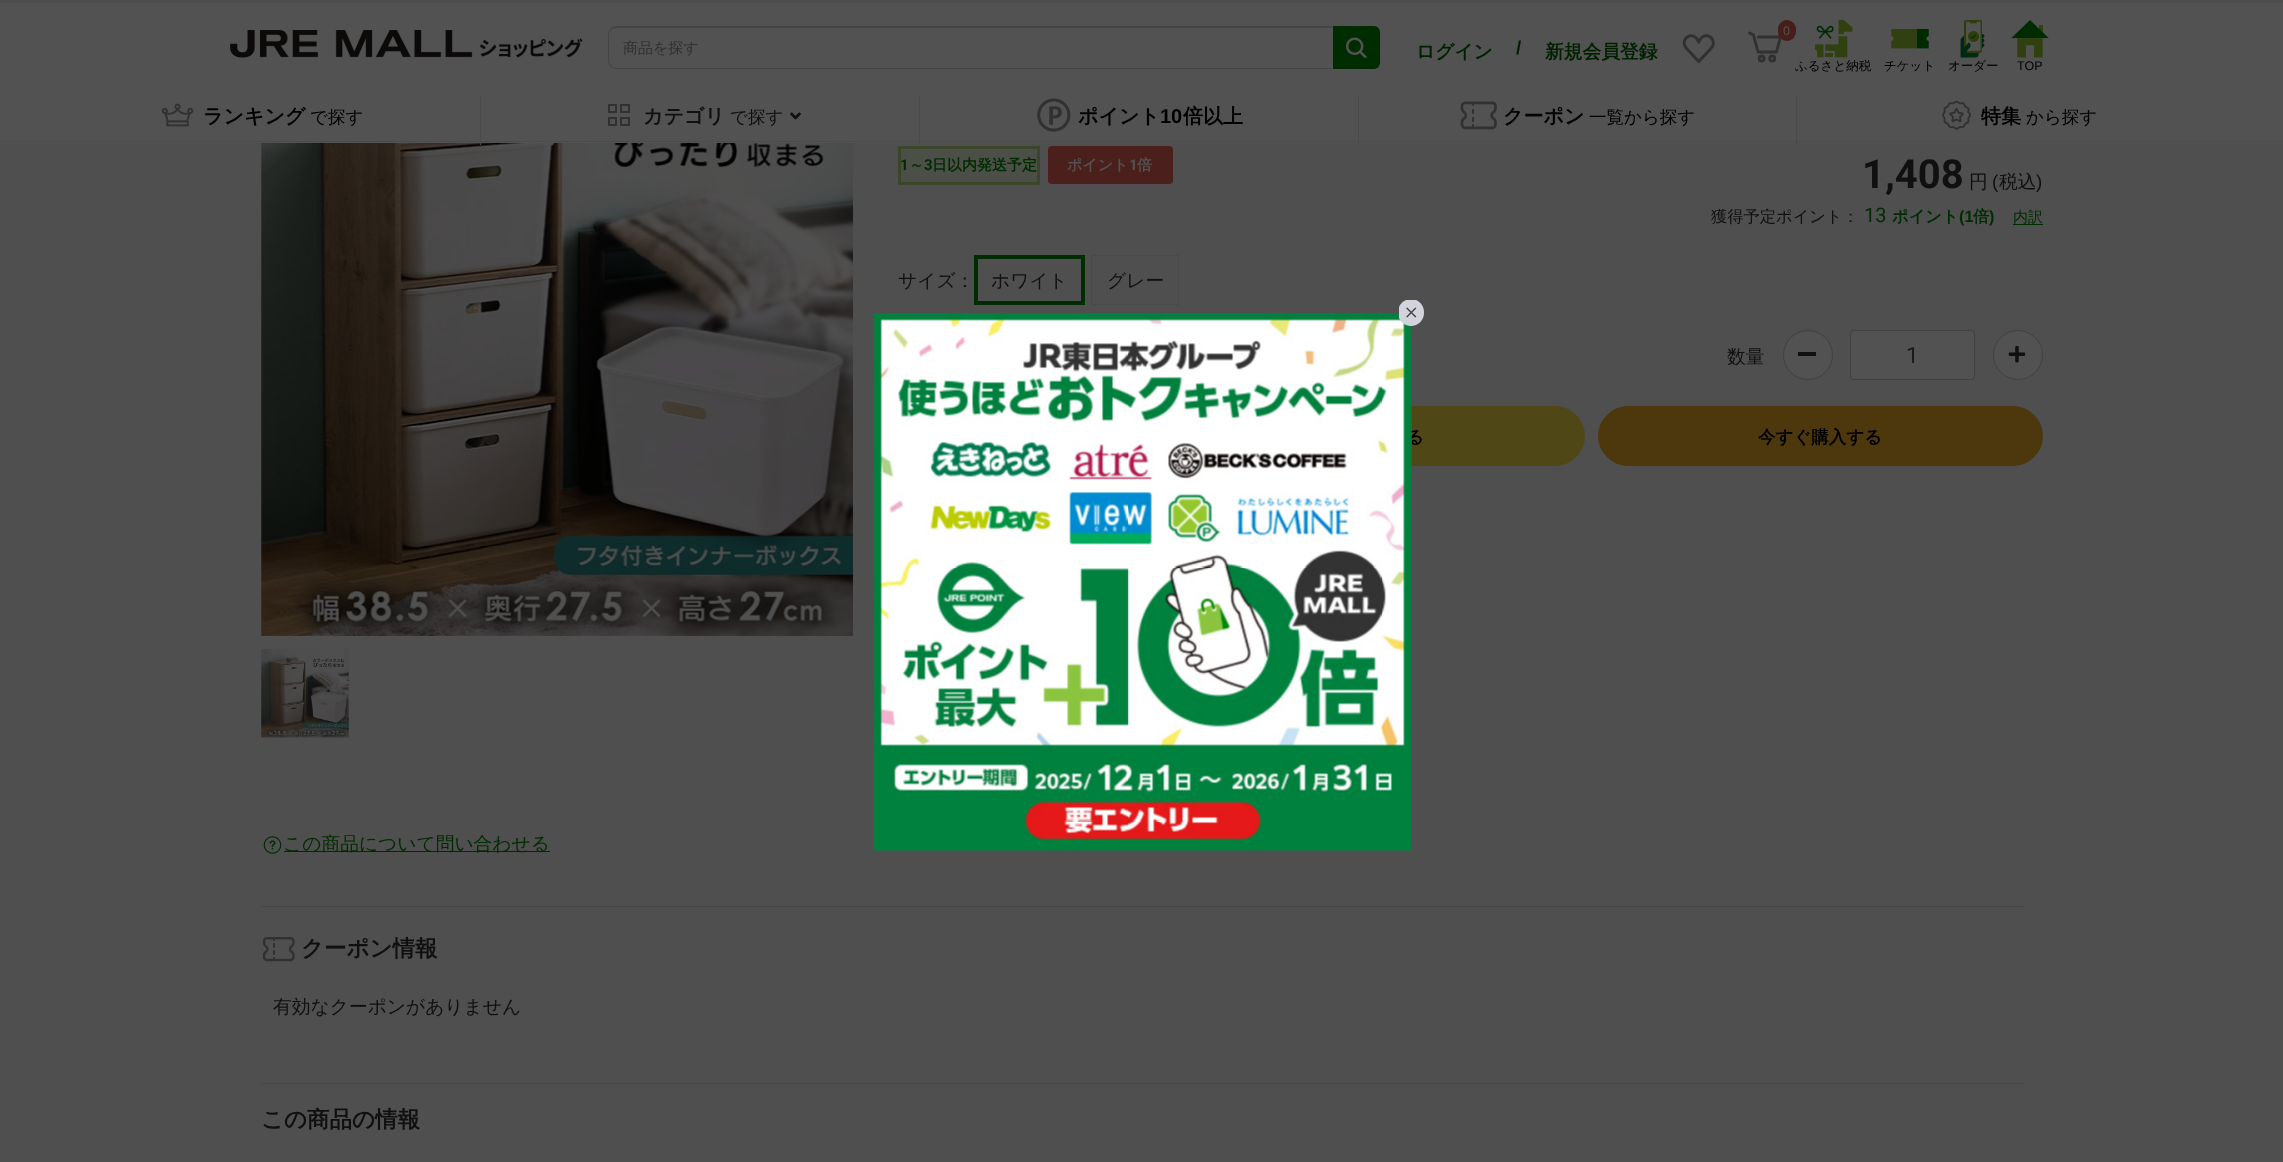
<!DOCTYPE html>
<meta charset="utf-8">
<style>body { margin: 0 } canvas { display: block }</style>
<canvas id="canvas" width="2283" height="1162"></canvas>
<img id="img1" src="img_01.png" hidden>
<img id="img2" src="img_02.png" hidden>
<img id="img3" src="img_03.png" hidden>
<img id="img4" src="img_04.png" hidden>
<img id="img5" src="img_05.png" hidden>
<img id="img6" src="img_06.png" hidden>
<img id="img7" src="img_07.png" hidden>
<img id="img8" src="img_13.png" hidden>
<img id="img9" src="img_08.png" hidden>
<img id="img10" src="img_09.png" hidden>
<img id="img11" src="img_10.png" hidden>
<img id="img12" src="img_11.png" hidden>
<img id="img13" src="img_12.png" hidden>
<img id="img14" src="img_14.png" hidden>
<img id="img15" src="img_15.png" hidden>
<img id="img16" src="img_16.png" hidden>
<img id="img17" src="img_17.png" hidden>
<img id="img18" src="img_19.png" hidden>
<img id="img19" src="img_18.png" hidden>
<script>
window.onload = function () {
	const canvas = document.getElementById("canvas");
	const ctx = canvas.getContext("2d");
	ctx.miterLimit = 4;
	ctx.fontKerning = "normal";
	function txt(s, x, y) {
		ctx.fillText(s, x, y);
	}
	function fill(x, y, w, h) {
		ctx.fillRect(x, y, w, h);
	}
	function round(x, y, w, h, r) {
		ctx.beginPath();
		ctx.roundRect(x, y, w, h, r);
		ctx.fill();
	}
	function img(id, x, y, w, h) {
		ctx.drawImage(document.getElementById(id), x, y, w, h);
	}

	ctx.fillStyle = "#4F4F4F";
	fill(0, 0, 2283, 1162);
	ctx.fillStyle = "#525252";
	fill(0, 3, 2283, 140);
	ctx.fillStyle = "#4C4C4C";
	fill(0, 0, 2283, 3);
	img("img1", 230, 30, 353, 28);
	ctx.fillStyle = "#454545";
	ctx.beginPath();
	ctx.moveTo(616, 26);
	ctx.lineTo(1332, 26);
	ctx.lineTo(1332, 69);
	ctx.lineTo(616, 69);
	ctx.bezierCurveTo(612, 69, 608, 65, 608, 60);
	ctx.lineTo(608, 35);
	ctx.bezierCurveTo(608, 30, 612, 26, 616, 26);
	ctx.closePath();
	ctx.moveTo(616, 28);
	ctx.lineTo(1332, 28);
	ctx.lineTo(1332, 68);
	ctx.lineTo(616, 68);
	ctx.bezierCurveTo(612, 68, 609, 64, 609, 60);
	ctx.lineTo(609, 35);
	ctx.bezierCurveTo(609, 31, 612, 28, 616, 28);
	ctx.closePath();
	ctx.fill("evenodd");
	ctx.fillStyle = "#002C01";
	ctx.beginPath();
	ctx.roundRect(1333, 26, 47, 43, [0, 6, 6, 0]);
	ctx.fill();
	img("img2", 1345, 37, 22, 22);
	ctx.beginPath();
	ctx.moveTo(1758.5, 37);
	ctx.lineTo(1780.5, 37);
	ctx.lineTo(1776.5, 52);
	ctx.lineTo(1758, 52);
	ctx.lineTo(1753.5, 35);
	ctx.lineTo(1749.5, 33);
	ctx.strokeStyle = "#313131";
	ctx.lineWidth = 2.9;
	ctx.lineCap = "round";
	ctx.lineJoin = "round";
	ctx.stroke();
	ctx.fillStyle = "#471E1A";
	round(1778, 20, 18, 21, 9);
	ctx.beginPath();
	ctx.arc(1761.7, 58.5, 2.5, 0, Math.PI * 2);
	ctx.stroke();
	ctx.beginPath();
	ctx.arc(1772.2, 58.5, 2.5, 0, Math.PI * 2);
	ctx.stroke();
	img("img3", 1682, 34, 33, 30);
	img("img4", 1815, 20, 38, 38);
	img("img5", 1891, 29, 38, 20);
	img("img6", 1960, 20, 25, 38);
	img("img7", 2011, 20, 38, 38);
	ctx.fillStyle = "#4C4C4C";
	fill(0, 141, 2283, 1);
	img("img8", 261, 143, 592, 493);
	ctx.fillStyle = "#4A4A4A";
	fill(480, 95, 1, 50);
	img("img9", 161, 103, 33, 24);
	fill(919, 95, 1, 50);
	ctx.lineWidth = 2;
	ctx.lineJoin = "miter";
	ctx.strokeRect(609, 105, 7, 7);
	ctx.strokeRect(621, 105, 8, 7);
	img("img10", 790, 112, 11, 8);
	ctx.strokeRect(609, 118, 7, 7);
	ctx.strokeRect(621, 118, 8, 7);
	fill(1358, 95, 1, 50);
	img("img11", 1037, 98, 34, 34);
	fill(1796, 95, 1, 50);
	img("img12", 1460, 101, 37, 29);
	img("img13", 1942, 100, 29, 30);
	img("img14", 261, 649, 88, 89);
	ctx.fillStyle = "#4C4F48";
	ctx.beginPath();
	ctx.rect(899.5, 147.5, 139, 36);
	ctx.fill();
	ctx.strokeStyle = "#3B452A";
	ctx.lineWidth = 3;
	ctx.stroke();
	ctx.fillStyle = "#4B1F1C";
	round(1048, 146, 125, 38, 4);
	ctx.fillStyle = "#002C01";
	fill(2013, 224, 30, 1);
	ctx.strokeStyle = "#002C01";
	ctx.lineWidth = 4;
	ctx.strokeRect(976, 257, 107, 46);
	ctx.strokeStyle = "#4A4A4A";
	ctx.lineWidth = 1;
	ctx.strokeRect(1091.5, 255.5, 87, 49);
	ctx.fillStyle = "#525252";
	ctx.beginPath();
	ctx.arc(1808, 355, 24.5, 0, Math.PI * 2);
	ctx.fill();
	ctx.strokeStyle = "#414141";
	ctx.stroke();
	ctx.fillStyle = "#101010";
	fill(1798, 352, 18, 4);
	ctx.fillStyle = "#525252";
	ctx.beginPath();
	ctx.roundRect(1850.5, 330.5, 124, 49, 3.5);
	ctx.fill();
	ctx.stroke();
	ctx.beginPath();
	ctx.arc(2018, 355, 24.5, 0, Math.PI * 2);
	ctx.fill();
	ctx.stroke();
	img("img15", 2008, 346, 18, 17);
	ctx.fillStyle = "#504716";
	ctx.beginPath();
	ctx.roundRect(1139.5, 406.5, 445, 59, 29.5);
	ctx.fill();
	ctx.strokeStyle = "#504716";
	ctx.stroke();
	ctx.fillStyle = "#4D370D";
	ctx.beginPath();
	ctx.roundRect(1598.5, 406.5, 444, 59, 29.5);
	ctx.fill();
	ctx.strokeStyle = "#4D370D";
	ctx.stroke();
	img("img16", 263, 836, 19, 18);
	ctx.fillStyle = "#002C01";
	fill(284, 851, 266, 1);
	ctx.fillStyle = "#474747";
	fill(261, 906, 1763, 1);
	img("img17", 262, 937, 33, 25);
	fill(261, 1083, 1763, 1);
	ctx.font = "500 15px WenQuanYi Zen Hei";
	ctx.fillStyle = "#313131";
	txt("商品を探す", 623, 53);
	ctx.font = "12.5px Liberation Sans";
	ctx.fillStyle = "#525252";
	txt("0", 1783, 35);
	ctx.font = "bold 18.75px WenQuanYi Zen Hei";
	ctx.fillStyle = "#002100";
	txt("ログイン", 1416, 58);
	ctx.font = "bold 18.75px Liberation Sans";
	txt("/", 1516, 54);
	ctx.font = "bold 18.75px WenQuanYi Zen Hei";
	txt("新規会員登録", 1545, 58);
	ctx.font = "500 12.5px WenQuanYi Zen Hei";
	ctx.fillStyle = "#000000";
	txt("ふるさと納税", 1795, 70);
	txt("チケット", 1884, 70);
	txt("オーダー", 1948, 70);
	ctx.font = "12.5px Liberation Sans";
	txt("TOP", 2017, 70);
	ctx.font = "bold 20px WenQuanYi Zen Hei";
	txt("ランキング", 203, 123);
	ctx.font = "500 17.5px WenQuanYi Zen Hei";
	txt("で探す", 310, 123);
	ctx.font = "bold 20px WenQuanYi Zen Hei";
	ctx.fillStyle = "#101010";
	txt("カテゴリ", 643, 123);
	ctx.font = "500 17.5px WenQuanYi Zen Hei";
	txt("で探す", 730, 123);
	ctx.font = "bold 20px WenQuanYi Zen Hei";
	ctx.fillStyle = "#000000";
	txt("ポイント", 1078, 123);
	ctx.font = "bold 20px Liberation Sans";
	txt("10", 1160, 123);
	ctx.font = "bold 20px WenQuanYi Zen Hei";
	txt("倍以上", 1183, 123);
	txt("クーポン", 1503, 123);
	ctx.font = "500 17.5px WenQuanYi Zen Hei";
	txt("一覧から探す", 1589, 123);
	ctx.font = "bold 20px WenQuanYi Zen Hei";
	txt("特集", 1981, 123);
	ctx.font = "500 17.5px WenQuanYi Zen Hei";
	txt("から探す", 2026, 123);
	ctx.font = "bold 15px Roboto";
	ctx.fillStyle = "#002C01";
	txt("1", 900, 170);
	ctx.font = "bold 15px WenQuanYi Zen Hei";
	txt("～", 909, 170);
	ctx.font = "bold 15px Roboto";
	txt("3", 924, 170);
	ctx.font = "bold 15px WenQuanYi Zen Hei";
	txt("日以内発送予定", 932, 170);
	ctx.fillStyle = "#525252";
	txt("ポイント", 1067, 170);
	ctx.font = "bold 15px Roboto";
	txt("1", 1129, 170);
	ctx.font = "bold 15px WenQuanYi Zen Hei";
	txt("倍", 1137, 170);
	ctx.font = "bold 40px Roboto";
	ctx.fillStyle = "#101010";
	txt("1,408", 1862, 188);
	ctx.font = "500 18.75px WenQuanYi Zen Hei";
	txt("円", 1969, 188);
	ctx.font = "18.75px Liberation Sans";
	txt("(", 1992, 188);
	ctx.font = "500 18.75px WenQuanYi Zen Hei";
	txt("税込", 1999, 188);
	ctx.font = "18.75px Liberation Sans";
	txt(")", 2036, 188);
	ctx.font = "500 16.25px WenQuanYi Zen Hei";
	txt("獲得予定ポイント：", 1711, 222);
	ctx.font = "20px Roboto";
	ctx.fillStyle = "#002C01";
	txt("13", 1864, 222);
	ctx.font = "bold 16.25px WenQuanYi Zen Hei";
	txt("ポイント", 1892, 222);
	ctx.font = "bold 16.25px Liberation Sans";
	txt("(1", 1959, 222);
	ctx.font = "bold 16.25px WenQuanYi Zen Hei";
	txt("倍", 1973, 222);
	ctx.font = "bold 16.25px Liberation Sans";
	txt(")", 1989, 222);
	ctx.font = "500 15px WenQuanYi Zen Hei";
	txt("内訳", 2013, 222);
	ctx.font = "500 18.75px WenQuanYi Zen Hei";
	ctx.fillStyle = "#101010";
	txt("サイズ：", 898, 287);
	txt("ホワイト", 991, 287);
	txt("グレー", 1107, 287);
	txt("数量", 1727, 363);
	ctx.font = "22.5px Roboto";
	ctx.fillStyle = "#1B1B1B";
	txt("1", 1906, 363);
	ctx.font = "bold 17.5px WenQuanYi Zen Hei";
	ctx.fillStyle = "#000000";
	txt("る", 1406, 443);
	txt("今すぐ購入する", 1758, 443);
	ctx.font = "500 18.75px WenQuanYi Zen Hei";
	ctx.fillStyle = "#002C01";
	txt("この商品について問い合わせる", 283, 850);
	ctx.font = "bold 22.5px WenQuanYi Zen Hei";
	ctx.fillStyle = "#101010";
	txt("クーポン情報", 301, 956);
	ctx.font = "500 18.75px WenQuanYi Zen Hei";
	txt("有効なクーポンがありません", 273, 1013);
	ctx.font = "bold 22.5px WenQuanYi Zen Hei";
	txt("この商品の情報", 261, 1127);
	img("img18", 873, 313, 539, 538);
	img("img19", 1399, 300, 25, 26);
};
</script>
